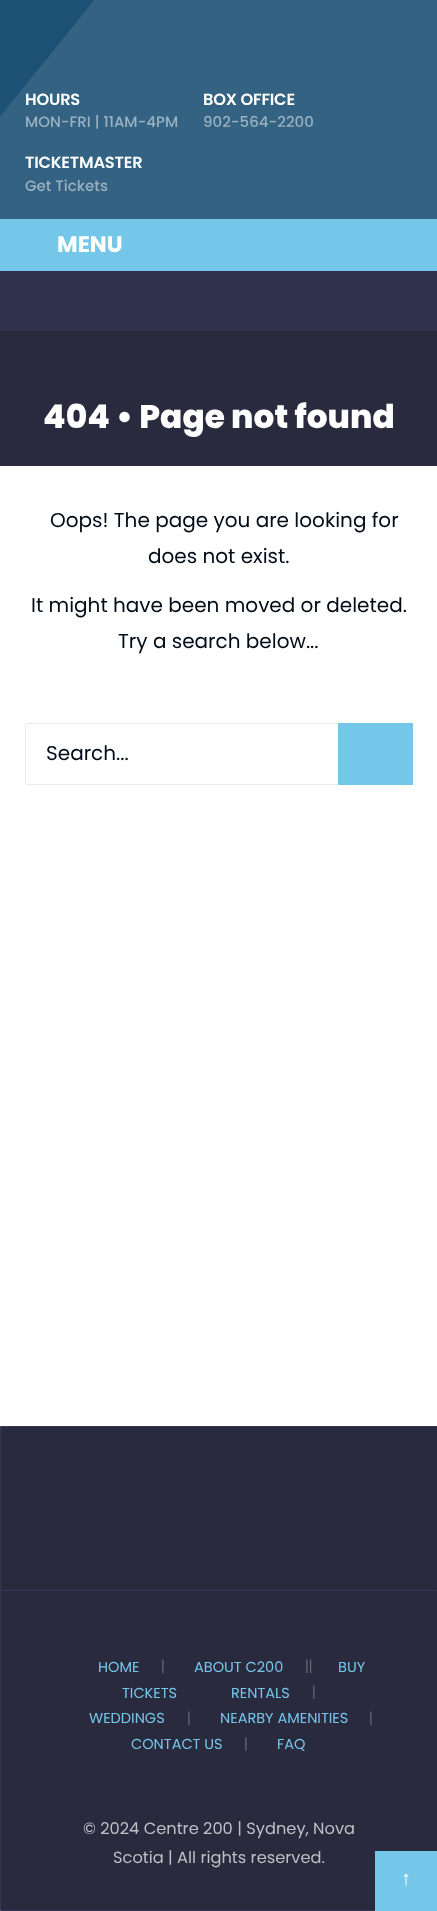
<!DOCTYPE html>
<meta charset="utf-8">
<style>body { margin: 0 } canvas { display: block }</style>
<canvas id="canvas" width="437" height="1911"></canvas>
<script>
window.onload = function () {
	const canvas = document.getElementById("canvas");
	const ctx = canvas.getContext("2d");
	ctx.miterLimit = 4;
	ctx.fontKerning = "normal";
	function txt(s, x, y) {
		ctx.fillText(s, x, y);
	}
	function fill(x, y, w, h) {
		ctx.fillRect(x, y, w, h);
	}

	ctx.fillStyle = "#FFFFFF";
	fill(0, 0, 437, 1911);
	ctx.fillStyle = "#1C5074";
	fill(0, 0, 95, 117);
	ctx.save();
	ctx.beginPath();
	ctx.rect(0, 0, 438, 219);
	ctx.clip();
	ctx.fillStyle = "#336282";
	ctx.beginPath();
	ctx.moveTo(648, -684);
	ctx.lineTo(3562, 1676);
	ctx.lineTo(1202, 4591);
	ctx.lineTo(-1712, 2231);
	ctx.closePath();
	ctx.fill();
	ctx.restore();
	ctx.fillStyle = "#75C7EA";
	fill(0, 219, 437, 52);
	ctx.fillStyle = "#2A2A3F";
	fill(0, 331, 437, 135);
	ctx.fillStyle = "#2F304B";
	fill(0, 271, 437, 60);
	ctx.beginPath();
	ctx.roundRect(25.5, 723.5, 387, 61, 2);
	ctx.strokeStyle = "#EAEAEA";
	ctx.stroke();
	ctx.fillStyle = "#75C7EA";
	fill(338, 723, 75, 62);
	ctx.fillStyle = "#2A2A3F";
	ctx.beginPath();
	ctx.rect(0.5, 1426.5, 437, 484);
	ctx.fill();
	ctx.strokeStyle = "#363654";
	ctx.stroke();
	ctx.fillStyle = "#363654";
	fill(1, 1590, 435, 1);
	ctx.fillStyle = "#75C7EA";
	fill(375, 1851, 62, 60);
	ctx.letterSpacing = "-0.2px";
	ctx.font = "600 16.25px Poppins";
	ctx.fillStyle = "#FFFFFF";
	txt("HOURS", 25, 105);
	ctx.letterSpacing = "0px";
	ctx.font = "500 15px Poppins";
	ctx.fillStyle = "#99B1C1";
	txt("MON-FRI | 11AM-4PM", 25, 127);
	ctx.letterSpacing = "-0.2px";
	ctx.font = "600 16.25px Poppins";
	ctx.fillStyle = "#FFFFFF";
	txt("BOX OFFICE", 203, 105);
	ctx.letterSpacing = "0px";
	ctx.font = "500 15px Poppins";
	ctx.fillStyle = "#99B1C1";
	txt("902-564-2200", 203, 127);
	ctx.letterSpacing = "-0.2px";
	ctx.font = "600 16.25px Poppins";
	ctx.fillStyle = "#FFFFFF";
	txt("TICKETMASTER", 25, 168);
	ctx.letterSpacing = "0px";
	ctx.font = "500 15px Poppins";
	ctx.fillStyle = "#99B1C1";
	txt("Get Tickets", 25, 191);
	ctx.font = "bold 22.5px Poppins";
	ctx.fillStyle = "#FFFFFF";
	txt("MENU", 57, 252);
	ctx.font = "800 32.75px Poppins";
	txt("404 • Page not found", 43, 428);
	ctx.font = "20px Poppins";
	ctx.fillStyle = "#000B16";
	txt("Oops! The page you are looking for", 50, 527);
	txt("does not exist.", 148, 563);
	txt("It might have been moved or deleted.", 31, 612);
	txt("Try a search below...", 118, 648);
	txt("Search...", 46, 760);
	ctx.font = "14.5px Poppins";
	ctx.fillStyle = "#75C7EA";
	txt("HOME", 98, 1672);
	ctx.font = "14.5px Liberation Sans";
	ctx.fillStyle = "#6A6A79";
	txt("|", 161, 1670);
	ctx.font = "14.5px Poppins";
	ctx.fillStyle = "#75C7EA";
	txt("ABOUT C200", 194, 1672);
	ctx.font = "14.5px Liberation Sans";
	ctx.fillStyle = "#6A6A79";
	txt("||", 305, 1670);
	ctx.font = "14.5px Poppins";
	ctx.fillStyle = "#75C7EA";
	txt("BUY", 338, 1672);
	txt("TICKETS", 122, 1698);
	txt("RENTALS", 231, 1698);
	ctx.font = "14.5px Liberation Sans";
	ctx.fillStyle = "#6A6A79";
	txt("|", 312, 1696);
	ctx.font = "14.5px Poppins";
	ctx.fillStyle = "#75C7EA";
	txt("WEDDINGS", 89, 1723);
	ctx.font = "14.5px Liberation Sans";
	ctx.fillStyle = "#6A6A79";
	txt("|", 187, 1722);
	ctx.font = "14.5px Poppins";
	ctx.fillStyle = "#75C7EA";
	txt("NEARBY AMENITIES", 220, 1723);
	ctx.font = "14.5px Liberation Sans";
	ctx.fillStyle = "#6A6A79";
	txt("|", 369, 1722);
	ctx.font = "14.5px Poppins";
	ctx.fillStyle = "#75C7EA";
	txt("CONTACT US", 131, 1749);
	ctx.font = "14.5px Liberation Sans";
	ctx.fillStyle = "#6A6A79";
	txt("|", 244, 1748);
	ctx.font = "14.5px Poppins";
	ctx.fillStyle = "#75C7EA";
	txt("FAQ", 277, 1749);
	ctx.font = "16.25px Poppins";
	ctx.fillStyle = "#BFBFC5";
	txt("© 2024 Centre 200 | Sydney, Nova", 83, 1834);
	txt("Scotia | All rights reserved.", 113, 1863);
	ctx.font = "20px Liberation Serif";
	ctx.fillStyle = "#FFFFFF";
	txt("↑", 401, 1885);
};
</script>
